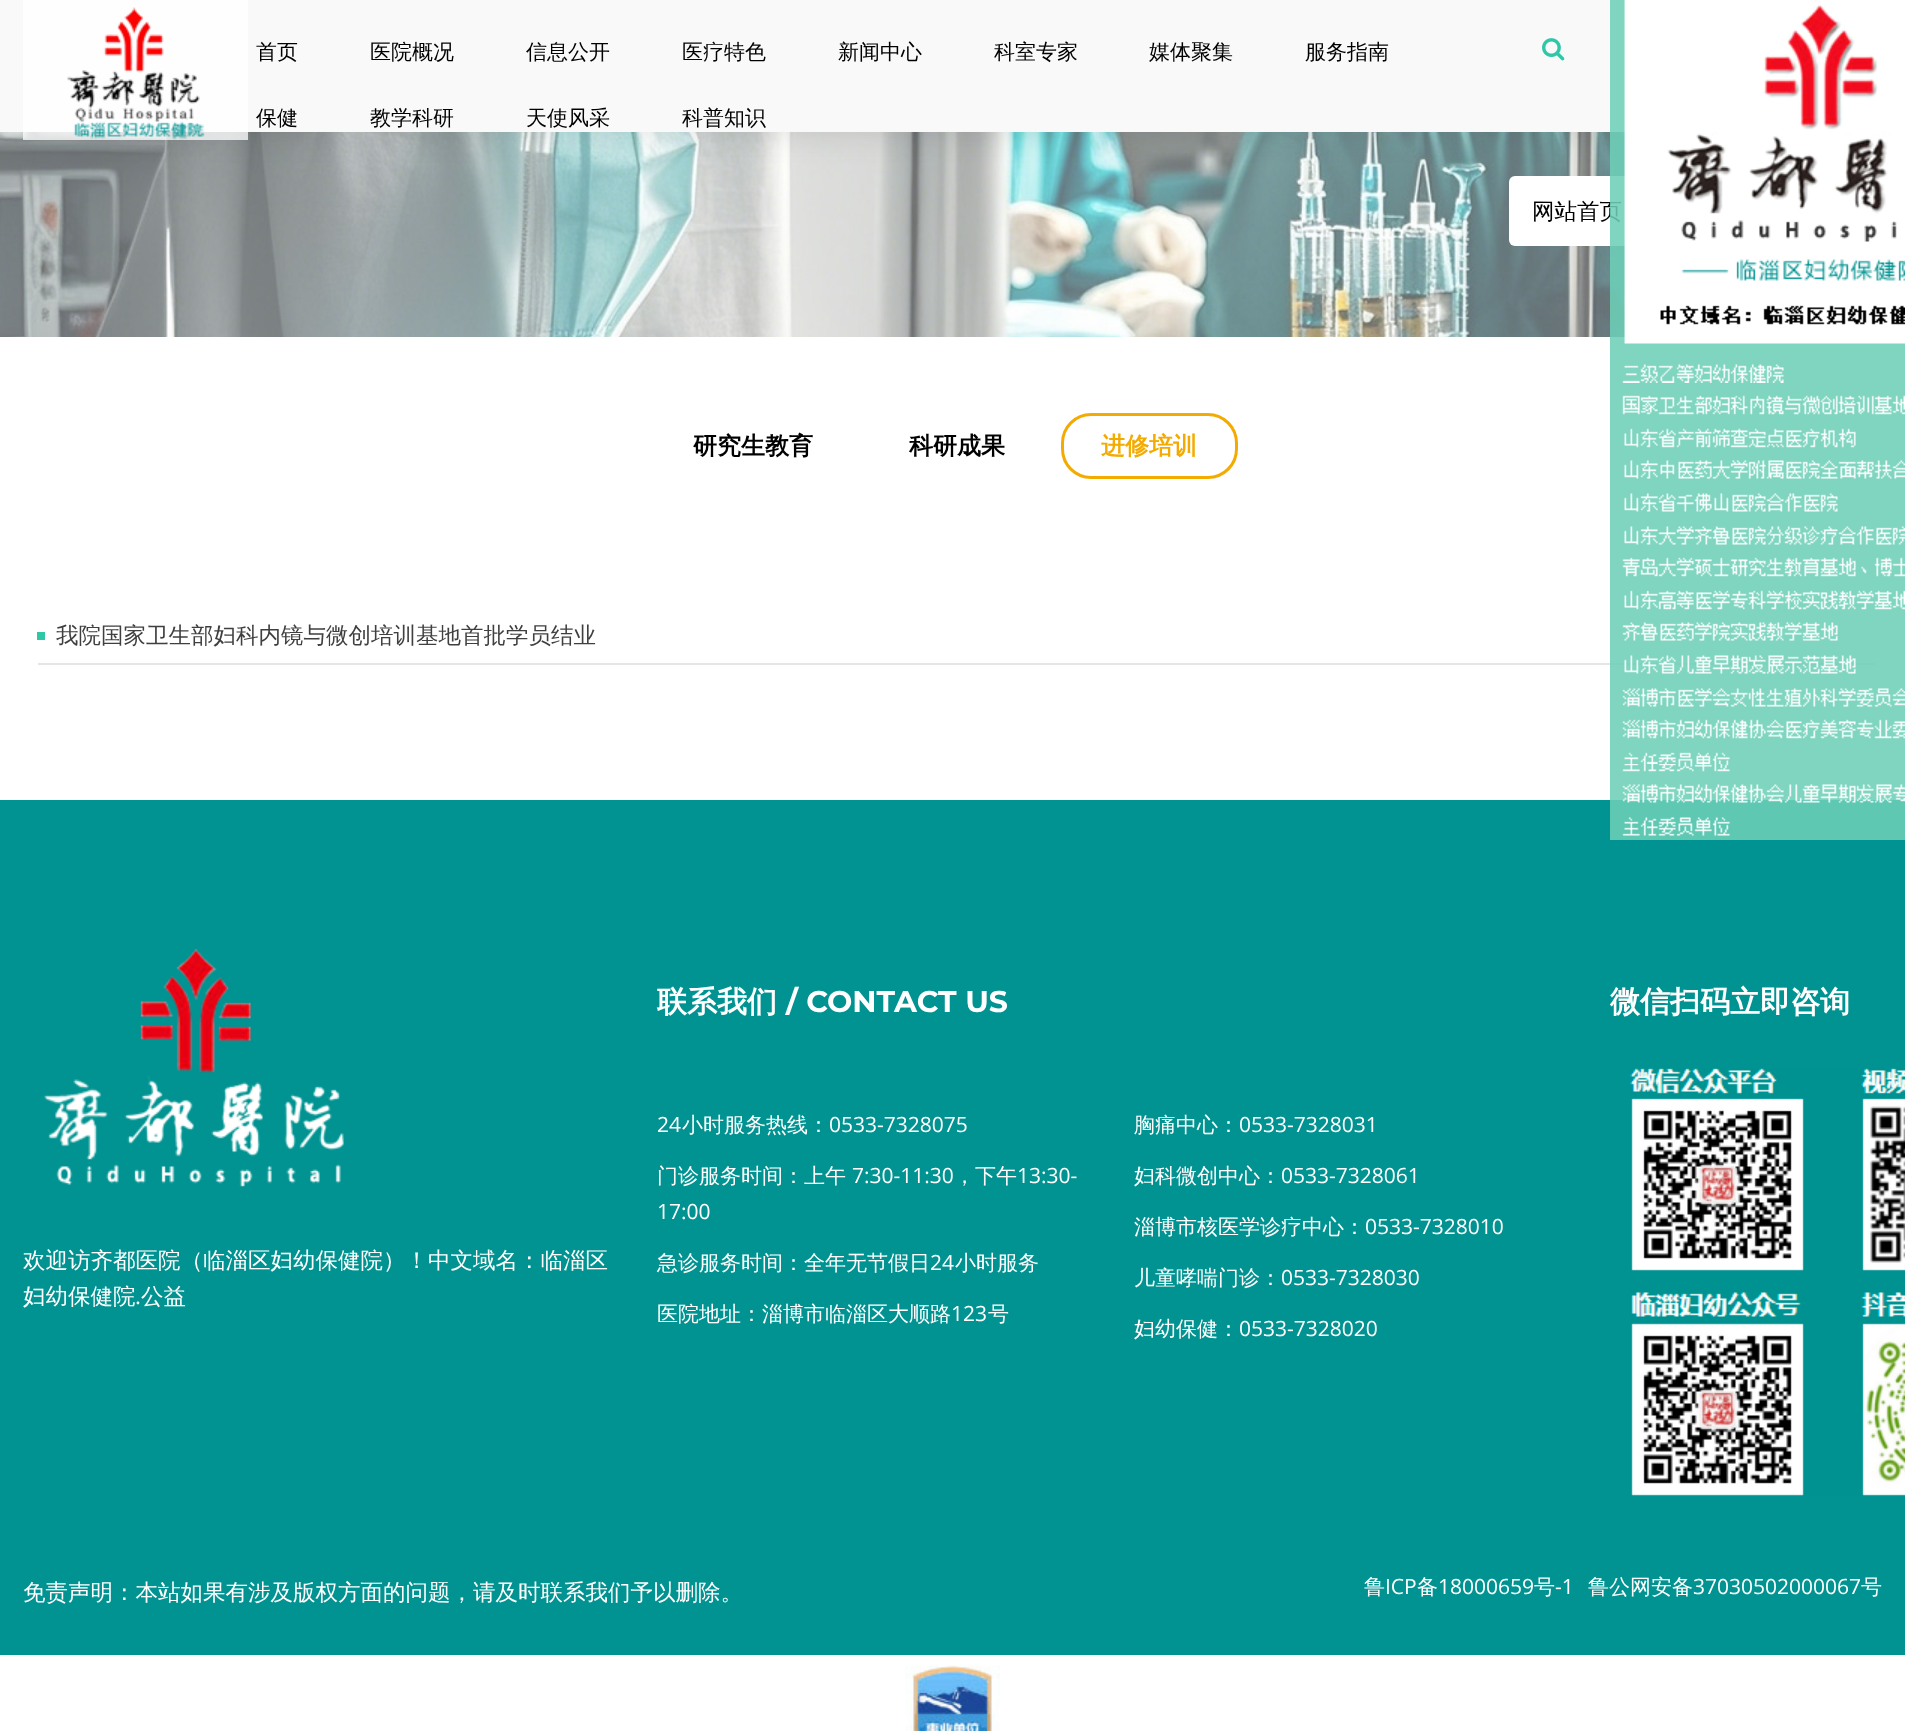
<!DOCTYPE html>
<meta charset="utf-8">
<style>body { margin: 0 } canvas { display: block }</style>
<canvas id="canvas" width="1905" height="1731"></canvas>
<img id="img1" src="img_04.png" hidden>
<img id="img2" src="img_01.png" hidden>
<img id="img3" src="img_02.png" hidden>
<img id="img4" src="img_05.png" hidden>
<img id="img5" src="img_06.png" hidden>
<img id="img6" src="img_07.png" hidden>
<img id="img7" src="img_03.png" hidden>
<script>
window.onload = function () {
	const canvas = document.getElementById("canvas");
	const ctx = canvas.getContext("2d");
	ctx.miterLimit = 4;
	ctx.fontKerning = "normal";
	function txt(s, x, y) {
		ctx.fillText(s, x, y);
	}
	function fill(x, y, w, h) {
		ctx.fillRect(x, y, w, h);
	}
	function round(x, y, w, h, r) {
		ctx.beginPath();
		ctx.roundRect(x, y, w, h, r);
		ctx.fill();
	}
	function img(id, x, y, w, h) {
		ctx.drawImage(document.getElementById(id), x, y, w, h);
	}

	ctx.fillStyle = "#FFFFFF";
	fill(0, 0, 1905, 1731);
	img("img1", 0, 132, 1625, 205);
	round(1509, 176, 374, 70, 6);
	ctx.fillStyle = "rgba(0, 0, 0, 0.1)";
	ctx.filter = "blur(15px)";
	ctx.beginPath();
	ctx.rect(0, 2, 1905, 132);
	ctx.fill();
	ctx.filter = "none";
	ctx.fillStyle = "#F9F9F9";
	fill(0, 0, 1625, 132);
	ctx.fillStyle = "rgba(255, 255, 255, 0.75)";
	fill(23, 0, 225, 140);
	img("img2", 67, 7, 138, 133);
	img("img3", 1542, 38, 23, 23);
	ctx.beginPath();
	ctx.roundRect(1062.5, 414.5, 174, 63, 28.5);
	ctx.strokeStyle = "#F4AB01";
	ctx.lineWidth = 3;
	ctx.stroke();
	ctx.fillStyle = "#E5E5E5";
	fill(38, 663, 1837, 2);
	ctx.fillStyle = "#2EC8A6";
	fill(37, 632, 8, 8);
	ctx.fillStyle = "#009391";
	fill(0, 800, 1905, 855);
	img("img4", 1630, 1068, 275, 428);
	img("img5", 43, 949, 301, 238);
	img("img6", 905, 1665, 95, 66);
	ctx.font = "500 21px WenQuanYi Zen Hei";
	ctx.fillStyle = "#000000";
	txt("首页", 256, 59);
	txt("医院概况", 370, 59);
	txt("信息公开", 526, 59);
	txt("医疗特色", 682, 59);
	txt("新闻中心", 838, 59);
	txt("科室专家", 994, 59);
	txt("媒体聚集", 1149, 59);
	txt("服务指南", 1305, 59);
	txt("保健", 256, 125);
	txt("教学科研", 370, 125);
	txt("天使风采", 526, 125);
	txt("科普知识", 682, 125);
	ctx.font = "500 22.5px WenQuanYi Zen Hei";
	txt("网站首页", 1532, 219);
	ctx.fillStyle = "rgba(255, 255, 255, 0.75)";
	fill(1610, 0, 295, 840);
	img("img7", 1610, 0, 295, 840);
	ctx.font = "bold 24px WenQuanYi Zen Hei";
	ctx.fillStyle = "#000000";
	txt("研究生教育", 693, 454);
	txt("科研成果", 909, 454);
	ctx.fillStyle = "#F4AB01";
	txt("进修培训", 1101, 454);
	ctx.font = "500 22.5px WenQuanYi Zen Hei";
	ctx.fillStyle = "#3F3F3F";
	txt("我院国家卫生部妇科内镜与微创培训基地首批学员结业", 56, 643);
	ctx.font = "bold 30px WenQuanYi Zen Hei";
	ctx.fillStyle = "#FFFFFF";
	txt("联系我们", 657, 1012);
	ctx.font = "bold 30px Montserrat";
	txt("/ CONTACT US", 786, 1012);
	ctx.font = "21px Open Sans";
	txt("24", 657, 1132);
	ctx.font = "500 21px WenQuanYi Zen Hei";
	txt("小时服务热线：", 682, 1132);
	ctx.font = "21px Open Sans";
	txt("0533-7328075", 829, 1132);
	ctx.font = "500 21px WenQuanYi Zen Hei";
	txt("门诊服务时间：上午", 657, 1183);
	ctx.font = "21px Open Sans";
	txt("7:30-11:30", 852, 1183);
	ctx.font = "500 21px WenQuanYi Zen Hei";
	txt("，下午", 954, 1183);
	ctx.font = "21px Open Sans";
	txt("13:30-", 1017, 1183);
	txt("17:00", 657, 1219);
	ctx.font = "500 21px WenQuanYi Zen Hei";
	txt("急诊服务时间：全年无节假日", 657, 1270);
	ctx.font = "21px Open Sans";
	txt("24", 930, 1270);
	ctx.font = "500 21px WenQuanYi Zen Hei";
	txt("小时服务", 955, 1270);
	txt("医院地址：淄博市临淄区大顺路", 657, 1321);
	ctx.font = "21px Open Sans";
	txt("123", 951, 1321);
	ctx.font = "500 21px WenQuanYi Zen Hei";
	txt("号", 988, 1321);
	txt("胸痛中心：", 1134, 1132);
	ctx.font = "21px Open Sans";
	txt("0533-7328031", 1239, 1132);
	ctx.font = "500 21px WenQuanYi Zen Hei";
	txt("妇科微创中心：", 1134, 1183);
	ctx.font = "21px Open Sans";
	txt("0533-7328061", 1281, 1183);
	ctx.font = "500 21px WenQuanYi Zen Hei";
	txt("淄博市核医学诊疗中心：", 1134, 1234);
	ctx.font = "21px Open Sans";
	txt("0533-7328010", 1365, 1234);
	ctx.font = "500 21px WenQuanYi Zen Hei";
	txt("儿童哮喘门诊：", 1134, 1285);
	ctx.font = "21px Open Sans";
	txt("0533-7328030", 1281, 1285);
	ctx.font = "500 21px WenQuanYi Zen Hei";
	txt("妇幼保健：", 1134, 1336);
	ctx.font = "21px Open Sans";
	txt("0533-7328020", 1239, 1336);
	ctx.font = "bold 30px WenQuanYi Zen Hei";
	txt("微信扫码立即咨询", 1610, 1012);
	ctx.font = "500 22.5px WenQuanYi Zen Hei";
	txt("欢迎访齐都医院（临淄区妇幼保健院）！中文域名：临淄区", 23, 1268);
	txt("妇幼保健院", 23, 1304);
	ctx.font = "22.5px Open Sans";
	txt(".", 135, 1304);
	ctx.font = "500 22.5px WenQuanYi Zen Hei";
	txt("公益", 141, 1304);
	txt("免责声明：本站如果有涉及版权方面的问题，请及时联系我们予以删除。", 23, 1600);
	ctx.font = "500 21px WenQuanYi Zen Hei";
	txt("鲁", 1364, 1594);
	ctx.font = "21px Open Sans";
	txt("ICP", 1385, 1594);
	ctx.font = "500 21px WenQuanYi Zen Hei";
	txt("备", 1417, 1594);
	ctx.font = "21px Open Sans";
	txt("18000659", 1438, 1594);
	ctx.font = "500 21px WenQuanYi Zen Hei";
	txt("号", 1534, 1594);
	ctx.font = "21px Open Sans";
	txt("-1", 1555, 1594);
	ctx.font = "500 21px WenQuanYi Zen Hei";
	txt("鲁公网安备", 1588, 1594);
	ctx.font = "21px Open Sans";
	txt("37030502000067", 1693, 1594);
	ctx.font = "500 21px WenQuanYi Zen Hei";
	txt("号", 1861, 1594);
};
</script>
